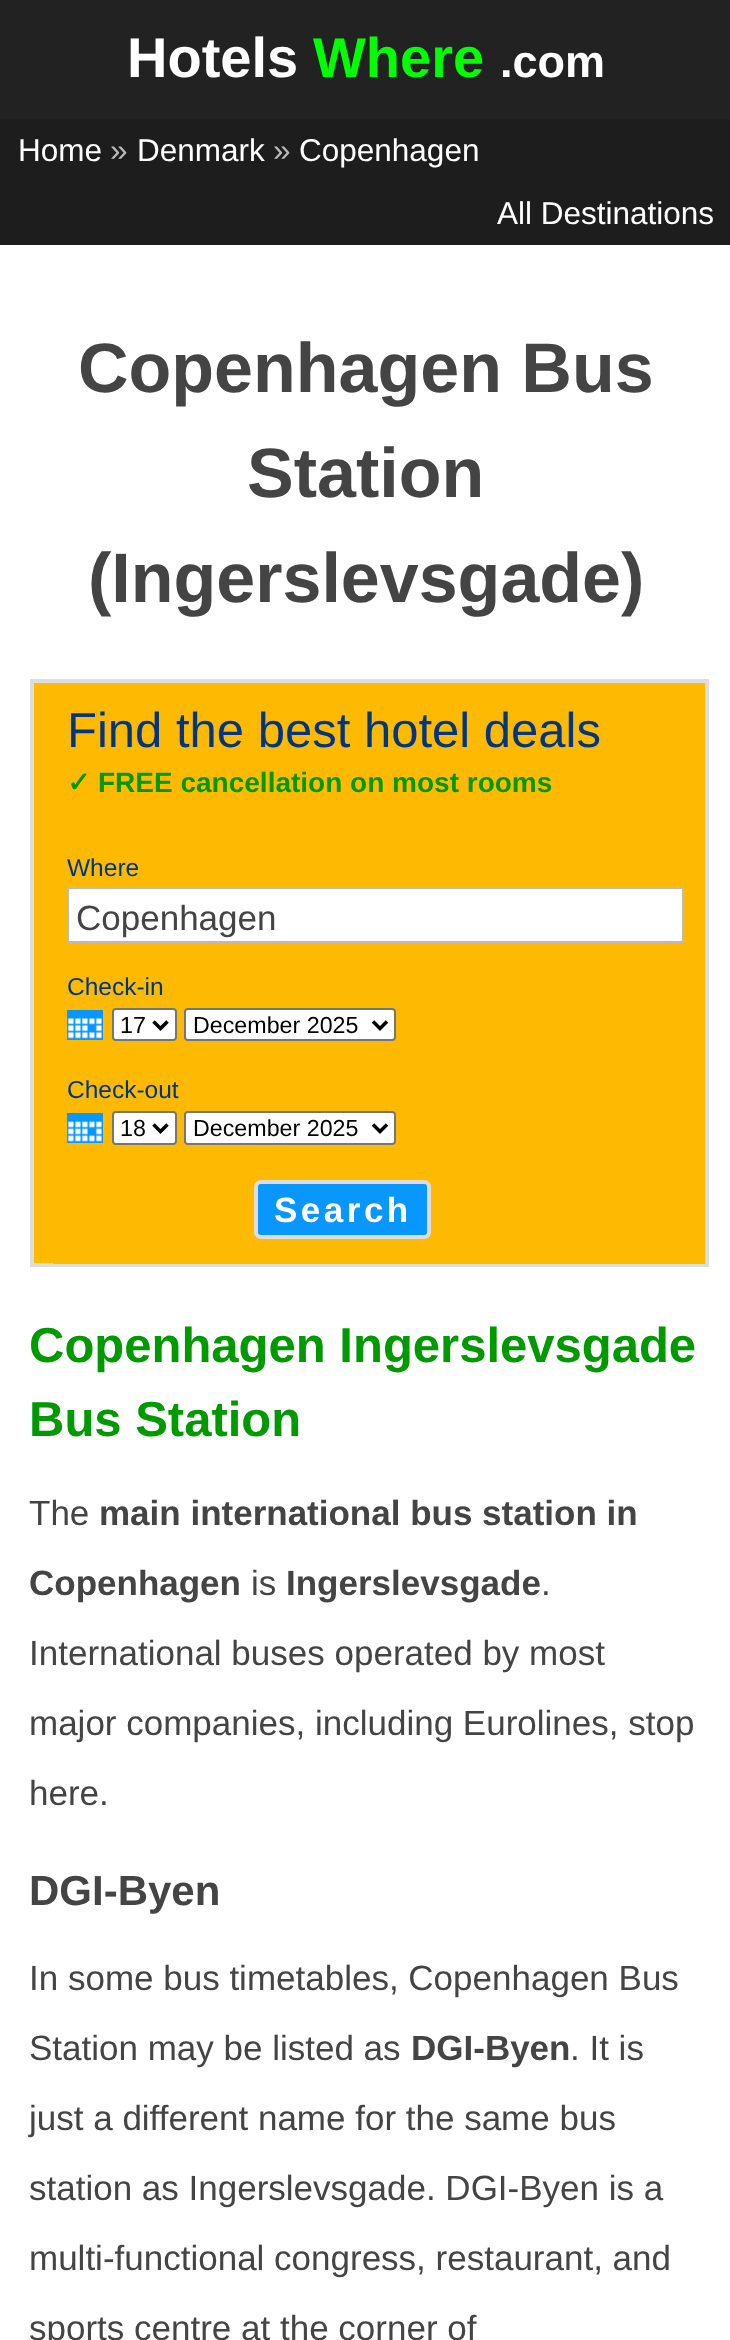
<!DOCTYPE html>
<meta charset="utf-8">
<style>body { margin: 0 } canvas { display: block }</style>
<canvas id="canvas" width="730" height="2340"></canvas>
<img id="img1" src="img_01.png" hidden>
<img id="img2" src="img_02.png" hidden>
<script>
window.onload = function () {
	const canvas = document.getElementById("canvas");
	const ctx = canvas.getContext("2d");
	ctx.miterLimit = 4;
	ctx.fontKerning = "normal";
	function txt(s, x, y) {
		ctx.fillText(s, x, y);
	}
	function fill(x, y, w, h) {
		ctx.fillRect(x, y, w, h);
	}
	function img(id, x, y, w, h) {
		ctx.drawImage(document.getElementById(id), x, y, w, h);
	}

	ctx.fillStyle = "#FFFFFF";
	fill(0, 0, 730, 2340);
	ctx.fillStyle = "#222222";
	fill(0, 0, 730, 119);
	ctx.fillStyle = "#1D1D1D";
	fill(0, 119, 730, 126);
	ctx.fillStyle = "#FEBA02";
	fill(34, 683, 19, 580);
	ctx.strokeStyle = "#DDDDDD";
	ctx.lineWidth = 4;
	ctx.strokeRect(32, 681, 675, 584);
	fill(53, 683, 652, 581);
	ctx.fillStyle = "#FFFFFF";
	ctx.beginPath();
	ctx.rect(68, 888, 615, 54);
	ctx.fill();
	ctx.strokeStyle = "#BBBBBB";
	ctx.lineWidth = 2;
	ctx.stroke();
	ctx.fillStyle = "#0896FF";
	fill(67, 1010, 36, 30);
	ctx.fillStyle = "#FFFFFF";
	ctx.beginPath();
	ctx.roundRect(113, 1009, 63, 31, 3);
	ctx.fill();
	ctx.strokeStyle = "#767676";
	ctx.stroke();
	ctx.beginPath();
	ctx.moveTo(153.5, 1021.5);
	ctx.lineTo(160.5, 1028.5);
	ctx.lineTo(167.5, 1021.5);
	ctx.strokeStyle = "#000000";
	ctx.lineWidth = 3.5;
	ctx.stroke();
	ctx.beginPath();
	ctx.roundRect(185, 1009, 210, 31, 3);
	ctx.fill();
	ctx.strokeStyle = "#767676";
	ctx.lineWidth = 2;
	ctx.stroke();
	ctx.beginPath();
	ctx.moveTo(373, 1021.5);
	ctx.lineTo(380, 1028.5);
	ctx.lineTo(387, 1021.5);
	ctx.strokeStyle = "#000000";
	ctx.lineWidth = 3.5;
	ctx.stroke();
	img("img1", 67, 1018, 35, 21);
	ctx.fillStyle = "#0896FF";
	fill(67, 1113, 36, 30);
	ctx.fillStyle = "#FFFFFF";
	ctx.beginPath();
	ctx.roundRect(113, 1112, 63, 32, 3);
	ctx.fill();
	ctx.strokeStyle = "#767676";
	ctx.lineWidth = 2;
	ctx.stroke();
	ctx.beginPath();
	ctx.moveTo(153.5, 1124.5);
	ctx.lineTo(160.5, 1131.5);
	ctx.lineTo(167.5, 1124.5);
	ctx.strokeStyle = "#000000";
	ctx.lineWidth = 3.5;
	ctx.stroke();
	ctx.beginPath();
	ctx.roundRect(185, 1112, 210, 32, 3);
	ctx.fill();
	ctx.strokeStyle = "#767676";
	ctx.lineWidth = 2;
	ctx.stroke();
	ctx.beginPath();
	ctx.moveTo(373, 1124.5);
	ctx.lineTo(380, 1131.5);
	ctx.lineTo(387, 1124.5);
	ctx.strokeStyle = "#000000";
	ctx.lineWidth = 3.5;
	ctx.stroke();
	img("img2", 67, 1121, 35, 21);
	ctx.fillStyle = "#0896FF";
	ctx.beginPath();
	ctx.roundRect(256, 1182, 173, 55, 5);
	ctx.fill();
	ctx.strokeStyle = "#DDDDDD";
	ctx.lineWidth = 4;
	ctx.stroke();
	ctx.font = "bold 56px Liberation Sans";
	ctx.fillStyle = "#FFFFFF";
	txt("Hotels", 127, 77);
	ctx.fillStyle = "#00FF00";
	txt("Where", 313, 77);
	ctx.font = "bold 45px Liberation Sans";
	ctx.fillStyle = "#FFFFFF";
	txt(".com", 500, 77);
	ctx.font = "31.5px Liberation Sans";
	txt("Home", 18, 161);
	ctx.fillStyle = "#BBBBBB";
	txt("»", 110, 161);
	ctx.fillStyle = "#FFFFFF";
	txt("Denmark", 137, 161);
	ctx.fillStyle = "#BBBBBB";
	txt("»", 273, 161);
	ctx.fillStyle = "#FFFFFF";
	txt("Copenhagen", 299, 161);
	txt("All Destinations", 497, 224);
	ctx.font = "bold 70px Liberation Sans";
	ctx.fillStyle = "#444444";
	txt("Copenhagen Bus", 78, 392);
	txt("Station", 247, 497);
	txt("(Ingerslevsgade)", 88, 602);
	ctx.font = "49px Liberation Sans";
	ctx.fillStyle = "#003580";
	txt("Find the best hotel deals", 67, 747);
	ctx.font = "bold 28px DejaVu Sans";
	ctx.fillStyle = "#009900";
	txt("✓", 67, 792);
	ctx.font = "bold 28px Liberation Sans";
	txt("FREE cancellation on most rooms", 98, 792);
	ctx.font = "24.5px Liberation Sans";
	ctx.fillStyle = "#003580";
	txt("Where", 67, 876);
	ctx.font = "35px Liberation Sans";
	ctx.fillStyle = "#444444";
	txt("Copenhagen", 76, 930);
	ctx.font = "24.5px Liberation Sans";
	ctx.fillStyle = "#003580";
	txt("Check-in", 67, 995);
	ctx.font = "23.25px Liberation Sans";
	ctx.fillStyle = "#000000";
	txt("17", 120, 1033);
	txt("December 2025", 193, 1033);
	ctx.font = "24.5px Liberation Sans";
	ctx.fillStyle = "#003580";
	txt("Check-out", 67, 1098);
	ctx.font = "23.25px Liberation Sans";
	ctx.fillStyle = "#000000";
	txt("18", 120, 1136);
	txt("December 2025", 193, 1136);
	ctx.letterSpacing = "3.5px";
	ctx.font = "bold 35px Liberation Sans";
	ctx.fillStyle = "#FFFFFF";
	txt("Search", 274, 1222);
	ctx.letterSpacing = "0px";
	ctx.font = "bold 49px Liberation Sans";
	ctx.fillStyle = "#009900";
	txt("Copenhagen Ingerslevsgade", 29, 1362);
	txt("Bus Station", 29, 1436);
	ctx.font = "35px Liberation Sans";
	ctx.fillStyle = "#444444";
	txt("The", 29, 1525);
	ctx.font = "bold 35px Liberation Sans";
	txt("main international bus station in", 99, 1525);
	txt("Copenhagen", 29, 1595);
	ctx.font = "35px Liberation Sans";
	txt("is", 251, 1595);
	ctx.font = "bold 35px Liberation Sans";
	txt("Ingerslevsgade", 286, 1595);
	ctx.font = "35px Liberation Sans";
	txt(".", 541, 1595);
	txt("International buses operated by most", 29, 1665);
	txt("major companies, including Eurolines, stop", 29, 1735);
	txt("here.", 29, 1805);
	ctx.font = "bold 42px Liberation Sans";
	txt("DGI-Byen", 29, 1905);
	ctx.font = "35px Liberation Sans";
	txt("In some bus timetables, Copenhagen Bus", 29, 1990);
	txt("Station may be listed as", 29, 2060);
	ctx.font = "bold 35px Liberation Sans";
	txt("DGI-Byen", 411, 2060);
	ctx.font = "35px Liberation Sans";
	txt(". It is", 570, 2060);
	txt("just a different name for the same bus", 29, 2130);
	txt("station as Ingerslevsgade. DGI-Byen is a", 29, 2200);
	txt("multi-functional congress, restaurant, and", 29, 2270);
	txt("sports centre at the corner of", 29, 2340);
};
</script>
